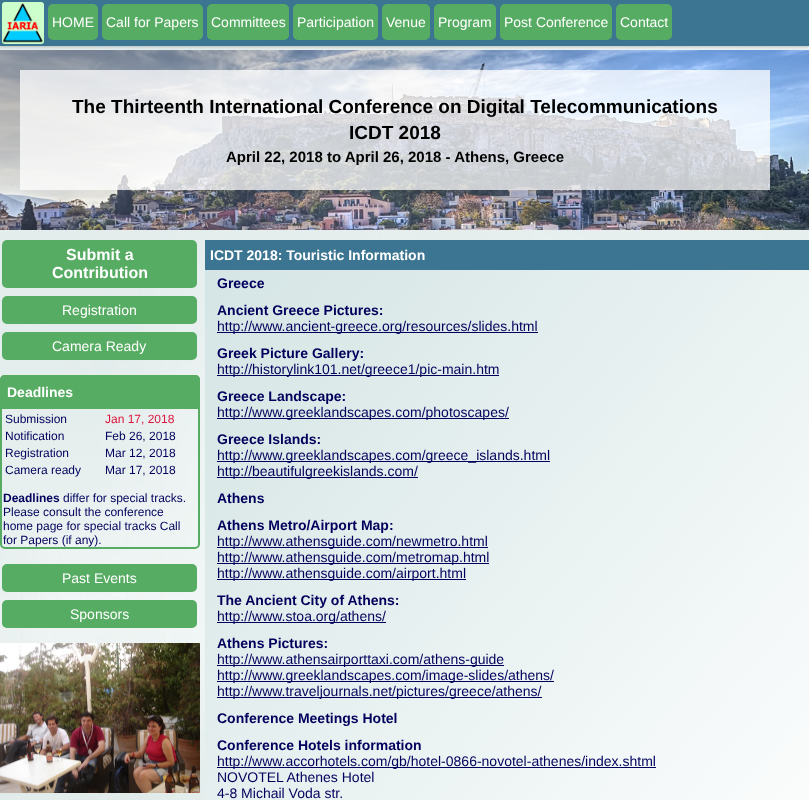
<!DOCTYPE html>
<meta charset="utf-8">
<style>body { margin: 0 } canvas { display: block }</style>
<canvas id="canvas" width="809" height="800"></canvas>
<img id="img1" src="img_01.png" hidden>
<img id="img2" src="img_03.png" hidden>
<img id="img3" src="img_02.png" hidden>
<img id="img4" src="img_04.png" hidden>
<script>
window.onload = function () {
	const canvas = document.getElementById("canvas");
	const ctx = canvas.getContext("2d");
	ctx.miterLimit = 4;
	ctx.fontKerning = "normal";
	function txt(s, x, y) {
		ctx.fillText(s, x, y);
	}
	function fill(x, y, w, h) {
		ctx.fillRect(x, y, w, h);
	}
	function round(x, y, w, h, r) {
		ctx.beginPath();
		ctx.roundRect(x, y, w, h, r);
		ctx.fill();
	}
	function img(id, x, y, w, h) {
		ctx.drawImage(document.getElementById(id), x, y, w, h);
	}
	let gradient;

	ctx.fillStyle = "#FFFFFF";
	fill(0, 0, 809, 800);
	img("img1", 0, 46, 809, 754);
	img("img2", 0, 50, 809, 180);
	ctx.fillStyle = "rgba(0, 0, 0, 0.2)";
	ctx.filter = "blur(1.5px)";
	ctx.beginPath();
	ctx.rect(0, 1, 809, 46);
	ctx.fill();
	ctx.filter = "none";
	ctx.fillStyle = "#3C7592";
	fill(0, 0, 809, 46);
	ctx.fillStyle = "#CCFFCC";
	round(2, 2, 42, 42, 3);
	img("img3", 2, 3, 41, 40);
	ctx.fillStyle = "#56AC62";
	round(48, 4, 50, 36, 5);
	round(102, 4, 101, 36, 5);
	round(207, 4, 82, 36, 5);
	round(293, 4, 85, 36, 5);
	round(382, 4, 48, 36, 5);
	round(434, 4, 62, 36, 5);
	round(500, 4, 112, 36, 5);
	round(616, 4, 56, 36, 5);
	ctx.fillStyle = "rgba(255, 255, 255, 0.75)";
	fill(20, 70, 750, 120);
	ctx.fillStyle = "#56AC62";
	round(2, 240, 195, 48, 5);
	round(2, 296, 195, 28, 5);
	round(2, 332, 195, 28, 5);
	ctx.beginPath();
	ctx.roundRect(0, 375, 200, 32, [5, 5, 0, 0]);
	ctx.fill();
	ctx.beginPath();
	ctx.moveTo(5, 375);
	ctx.lineTo(195, 375);
	ctx.bezierCurveTo(198, 375, 200, 377, 200, 380);
	ctx.lineTo(200, 407);
	ctx.lineTo(0, 407);
	ctx.lineTo(0, 380);
	ctx.bezierCurveTo(0, 377, 2, 375, 5, 375);
	ctx.closePath();
	ctx.moveTo(5, 377);
	ctx.lineTo(195, 377);
	ctx.bezierCurveTo(197, 377, 198, 378, 198, 380);
	ctx.lineTo(198, 407);
	ctx.lineTo(2, 407);
	ctx.lineTo(2, 380);
	ctx.bezierCurveTo(2, 378, 3, 377, 5, 377);
	ctx.closePath();
	ctx.fill("evenodd");
	ctx.beginPath();
	ctx.roundRect(1, 408, 198, 140, [0, 0, 4, 4]);
	ctx.strokeStyle = "#56AC62";
	ctx.lineWidth = 2;
	ctx.stroke();
	round(2, 564, 195, 28, 5);
	round(2, 600, 195, 28, 5);
	img("img4", 0, 643, 200, 150);
	gradient = ctx.createLinearGradient(160, 292, 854, 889);
	gradient.addColorStop(0, "#D4E4E4");
	gradient.addColorStop(1, "#FFFFFF");
	ctx.fillStyle = gradient;
	fill(205, 270, 604, 530);
	ctx.fillStyle = "#3C7592";
	fill(205, 240, 604, 30);
	ctx.fillStyle = "#00005C";
	fill(217, 332, 321, 1);
	fill(217, 375, 282, 1);
	fill(217, 418, 292, 1);
	fill(217, 461, 333, 1);
	fill(217, 477, 201, 1);
	fill(217, 547, 271, 1);
	fill(217, 563, 272, 1);
	fill(217, 579, 249, 1);
	fill(217, 622, 169, 1);
	fill(217, 665, 287, 1);
	fill(217, 681, 337, 1);
	fill(217, 697, 325, 1);
	fill(217, 767, 439, 1);
	ctx.font = "14px Liberation Sans";
	ctx.fillStyle = "#FFFFFF";
	txt("HOME", 52, 27);
	txt("Call for Papers", 106, 27);
	txt("Committees", 211, 27);
	txt("Participation", 297, 27);
	txt("Venue", 386, 27);
	txt("Program", 438, 27);
	txt("Post Conference", 504, 27);
	txt("Contact", 620, 27);
	ctx.font = "bold 19px Liberation Sans";
	ctx.fillStyle = "#000000";
	txt("The Thirteenth International Conference on Digital Telecommunications", 72, 113);
	txt("ICDT 2018", 349, 139);
	ctx.font = "bold 15px Liberation Sans";
	txt("April 22, 2018 to April 26, 2018 - Athens, Greece", 226, 162);
	ctx.font = "bold 16px Liberation Sans";
	ctx.fillStyle = "#FFFFFF";
	txt("Submit a", 66, 260);
	txt("Contribution", 52, 278);
	ctx.font = "14px Liberation Sans";
	txt("Registration", 62, 315);
	txt("Camera Ready", 52, 351);
	ctx.font = "bold 14px Liberation Sans";
	txt("Deadlines", 7, 397);
	ctx.font = "12px Liberation Sans";
	ctx.fillStyle = "#00005C";
	txt("Submission", 5, 423);
	ctx.fillStyle = "#DC143C";
	txt("Jan 17, 2018", 105, 423);
	ctx.fillStyle = "#00005C";
	txt("Notification", 5, 440);
	txt("Feb 26, 2018", 105, 440);
	txt("Registration", 5, 457);
	txt("Mar 12, 2018", 105, 457);
	txt("Camera ready", 5, 474);
	txt("Mar 17, 2018", 105, 474);
	ctx.font = "bold 12px Liberation Sans";
	txt("Deadlines", 3, 502);
	ctx.font = "12px Liberation Sans";
	txt("differ for special tracks.", 63, 502);
	txt("Please consult the conference", 3, 516);
	txt("home page for special tracks Call", 3, 530);
	txt("for Papers (if any).", 3, 544);
	ctx.font = "14px Liberation Sans";
	ctx.fillStyle = "#FFFFFF";
	txt("Past Events", 62, 583);
	txt("Sponsors", 70, 619);
	ctx.font = "bold 14px Liberation Sans";
	txt("ICDT 2018: Touristic Information", 210, 260);
	ctx.fillStyle = "#00005C";
	txt("Greece", 217, 288);
	txt("Ancient Greece Pictures:", 217, 315);
	ctx.font = "14px Liberation Sans";
	txt("http://www.ancient-greece.org/resources/slides.html", 217, 331);
	ctx.font = "bold 14px Liberation Sans";
	txt("Greek Picture Gallery:", 217, 358);
	ctx.font = "14px Liberation Sans";
	txt("http://historylink101.net/greece1/pic-main.htm", 217, 374);
	ctx.font = "bold 14px Liberation Sans";
	txt("Greece Landscape:", 217, 401);
	ctx.font = "14px Liberation Sans";
	txt("http://www.greeklandscapes.com/photoscapes/", 217, 417);
	ctx.font = "bold 14px Liberation Sans";
	txt("Greece Islands:", 217, 444);
	ctx.font = "14px Liberation Sans";
	txt("http://www.greeklandscapes.com/greece_islands.html", 217, 460);
	txt("http://beautifulgreekislands.com/", 217, 476);
	ctx.font = "bold 14px Liberation Sans";
	txt("Athens", 217, 503);
	txt("Athens Metro/Airport Map:", 217, 530);
	ctx.font = "14px Liberation Sans";
	txt("http://www.athensguide.com/newmetro.html", 217, 546);
	txt("http://www.athensguide.com/metromap.html", 217, 562);
	txt("http://www.athensguide.com/airport.html", 217, 578);
	ctx.font = "bold 14px Liberation Sans";
	txt("The Ancient City of Athens:", 217, 605);
	ctx.font = "14px Liberation Sans";
	txt("http://www.stoa.org/athens/", 217, 621);
	ctx.font = "bold 14px Liberation Sans";
	txt("Athens Pictures:", 217, 648);
	ctx.font = "14px Liberation Sans";
	txt("http://www.athensairporttaxi.com/athens-guide", 217, 664);
	txt("http://www.greeklandscapes.com/image-slides/athens/", 217, 680);
	txt("http://www.traveljournals.net/pictures/greece/athens/", 217, 696);
	ctx.font = "bold 14px Liberation Sans";
	txt("Conference Meetings Hotel", 217, 723);
	txt("Conference Hotels information", 217, 750);
	ctx.font = "14px Liberation Sans";
	txt("http://www.accorhotels.com/gb/hotel-0866-novotel-athenes/index.shtml", 217, 766);
	txt("NOVOTEL Athenes Hotel", 217, 782);
	txt("4-8 Michail Voda str.", 217, 798);
};
</script>
